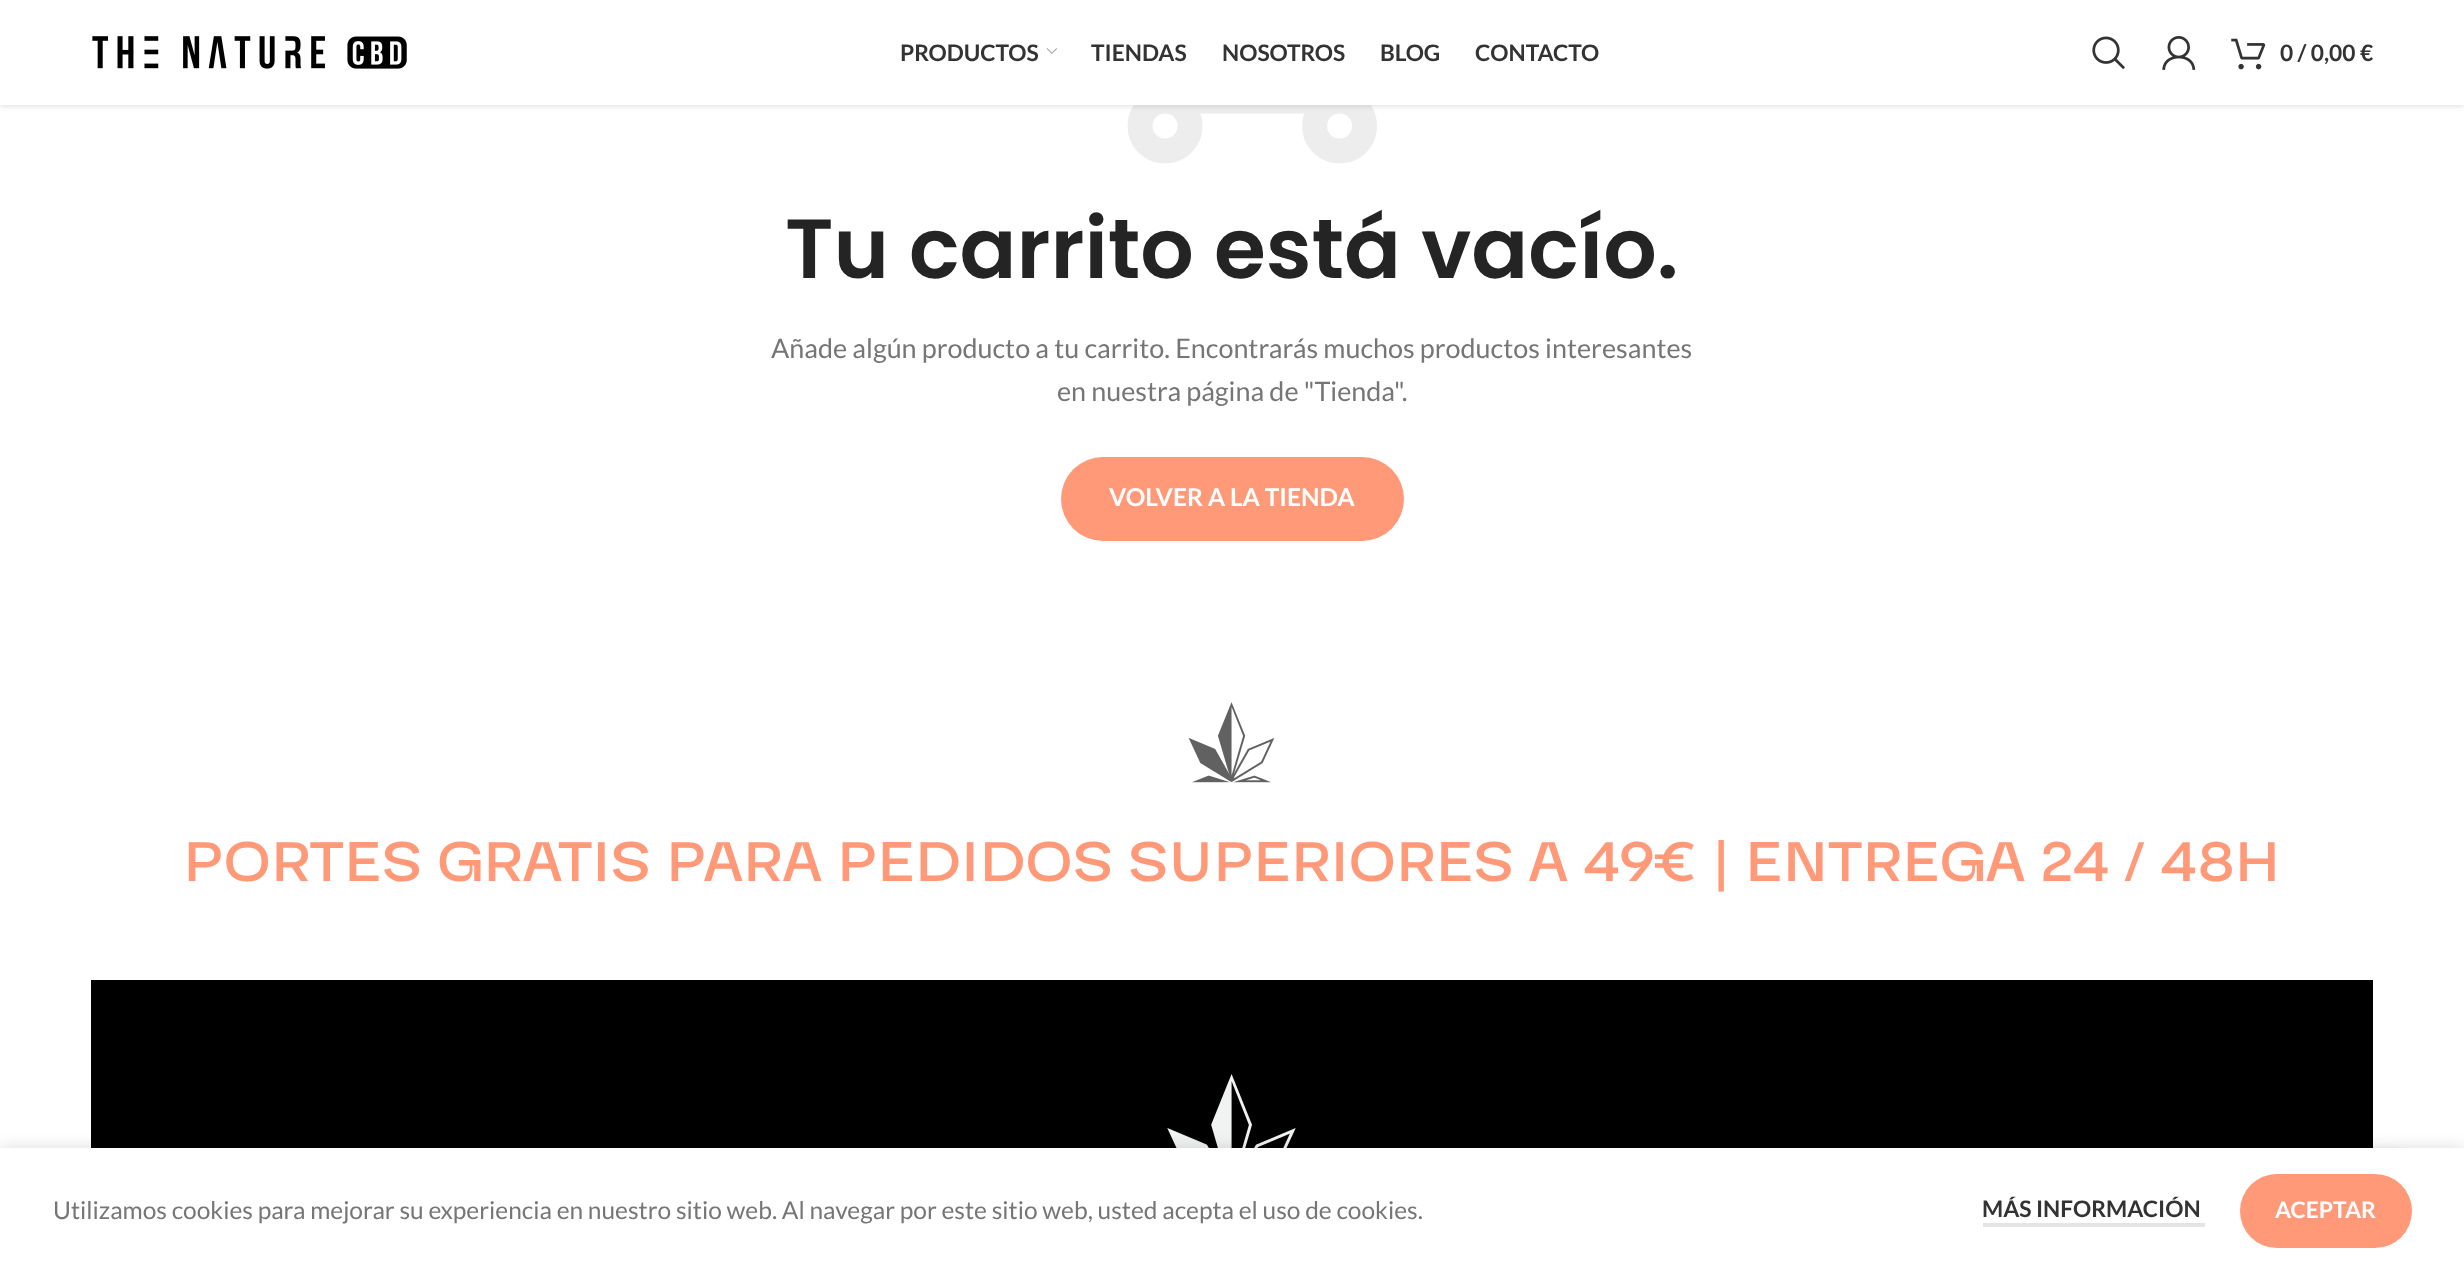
<!DOCTYPE html>
<meta charset="utf-8">
<style>body { margin: 0 } canvas { display: block }</style>
<canvas id="canvas" width="2464" height="1273"></canvas>
<img id="img1" src="img_06.png" hidden>
<img id="img2" src="img_01.png" hidden>
<img id="img3" src="img_02.png" hidden>
<img id="img4" src="img_03.png" hidden>
<img id="img5" src="img_04.png" hidden>
<img id="img6" src="img_05.png" hidden>
<img id="img7" src="img_07.png" hidden>
<img id="img8" src="img_08.png" hidden>
<script>
window.onload = function () {
	const canvas = document.getElementById("canvas");
	const ctx = canvas.getContext("2d");
	ctx.miterLimit = 4;
	ctx.fontKerning = "normal";
	function txt(s, x, y) {
		ctx.fillText(s, x, y);
	}
	function fill(x, y, w, h) {
		ctx.fillRect(x, y, w, h);
	}
	function round(x, y, w, h, r) {
		ctx.beginPath();
		ctx.roundRect(x, y, w, h, r);
		ctx.fill();
	}
	function img(id, x, y, w, h) {
		ctx.drawImage(document.getElementById(id), x, y, w, h);
	}

	ctx.fillStyle = "#FFFFFF";
	fill(0, 0, 2464, 1273);
	img("img1", 1127, 105, 250, 59);
	ctx.fillStyle = "rgba(0, 0, 0, 0.1)";
	ctx.filter = "blur(2.5px)";
	ctx.beginPath();
	ctx.rect(0, 2, 2464, 105);
	ctx.fill();
	ctx.filter = "none";
	ctx.fillStyle = "#FFFFFF";
	fill(0, 0, 2464, 105);
	img("img2", 92, 36, 315, 33);
	img("img3", 1046, 48, 11, 6);
	img("img4", 2092, 36, 33, 34);
	img("img5", 2162, 36, 34, 34);
	img("img6", 2231, 38, 35, 32);
	ctx.fillStyle = "#FF9978";
	round(1061, 457, 343, 84, 42);
	img("img7", 1188, 702, 87, 81);
	ctx.fillStyle = "#000000";
	fill(91, 980, 2282, 168);
	img("img8", 1167, 1074, 129, 74);
	ctx.fillStyle = "rgba(0, 0, 0, 0.14)";
	ctx.filter = "blur(8px)";
	ctx.beginPath();
	ctx.rect(0, 1148, 2464, 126);
	ctx.fill();
	ctx.filter = "none";
	ctx.fillStyle = "rgba(0, 0, 0, 0.17)";
	ctx.filter = "blur(4.5px)";
	ctx.beginPath();
	ctx.roundRect(2342, 1152, 87, 87, 43.5);
	ctx.fill();
	ctx.filter = "none";
	ctx.fillStyle = "#FFFFFF";
	fill(0, 1148, 2464, 125);
	ctx.fillStyle = "#E4E4E4";
	fill(1983, 1223, 222, 4);
	ctx.fillStyle = "#FF9978";
	round(2240, 1174, 172, 74, 37);
	ctx.font = "bold 22.75px Lato";
	ctx.fillStyle = "#333333";
	txt("PRODUCTOS", 900, 61);
	txt("TIENDAS", 1091, 61);
	txt("NOSOTROS", 1222, 61);
	txt("BLOG", 1380, 61);
	txt("CONTACTO", 1475, 61);
	txt("0 / 0,00 €", 2280, 61);
	ctx.font = "600 84px Poppins";
	ctx.fillStyle = "#242424";
	txt("Tu carrito está vacío.", 785, 278);
	ctx.font = "26.95px Lato";
	ctx.fillStyle = "#767676";
	txt("Añade algún producto a tu carrito. Encontrarás muchos productos interesantes", 771, 358);
	txt("en nuestra página de \"Tienda\".", 1057, 401);
	ctx.font = "bold 24.5px Lato";
	ctx.fillStyle = "#FFFFFF";
	txt("VOLVER A LA TIENDA", 1109, 506);
	ctx.font = "500 61.25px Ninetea";
	ctx.fillStyle = "#FF9978";
	txt("PORTES GRATIS PARA PEDIDOS SUPERIORES A 49€ | ENTREGA 24 / 48H", 183, 881);
	ctx.font = "24.5px Lato";
	ctx.fillStyle = "#767676";
	txt("Utilizamos cookies para mejorar su experiencia en nuestro sitio web. Al navegar por este sitio web, usted acepta el uso de cookies.", 53, 1219);
	ctx.font = "bold 22.75px Lato";
	ctx.fillStyle = "#333333";
	txt("MÁS INFORMACIÓN", 1982, 1217);
	ctx.fillStyle = "#FFFFFF";
	txt("ACEPTAR", 2275, 1218);
};
</script>
